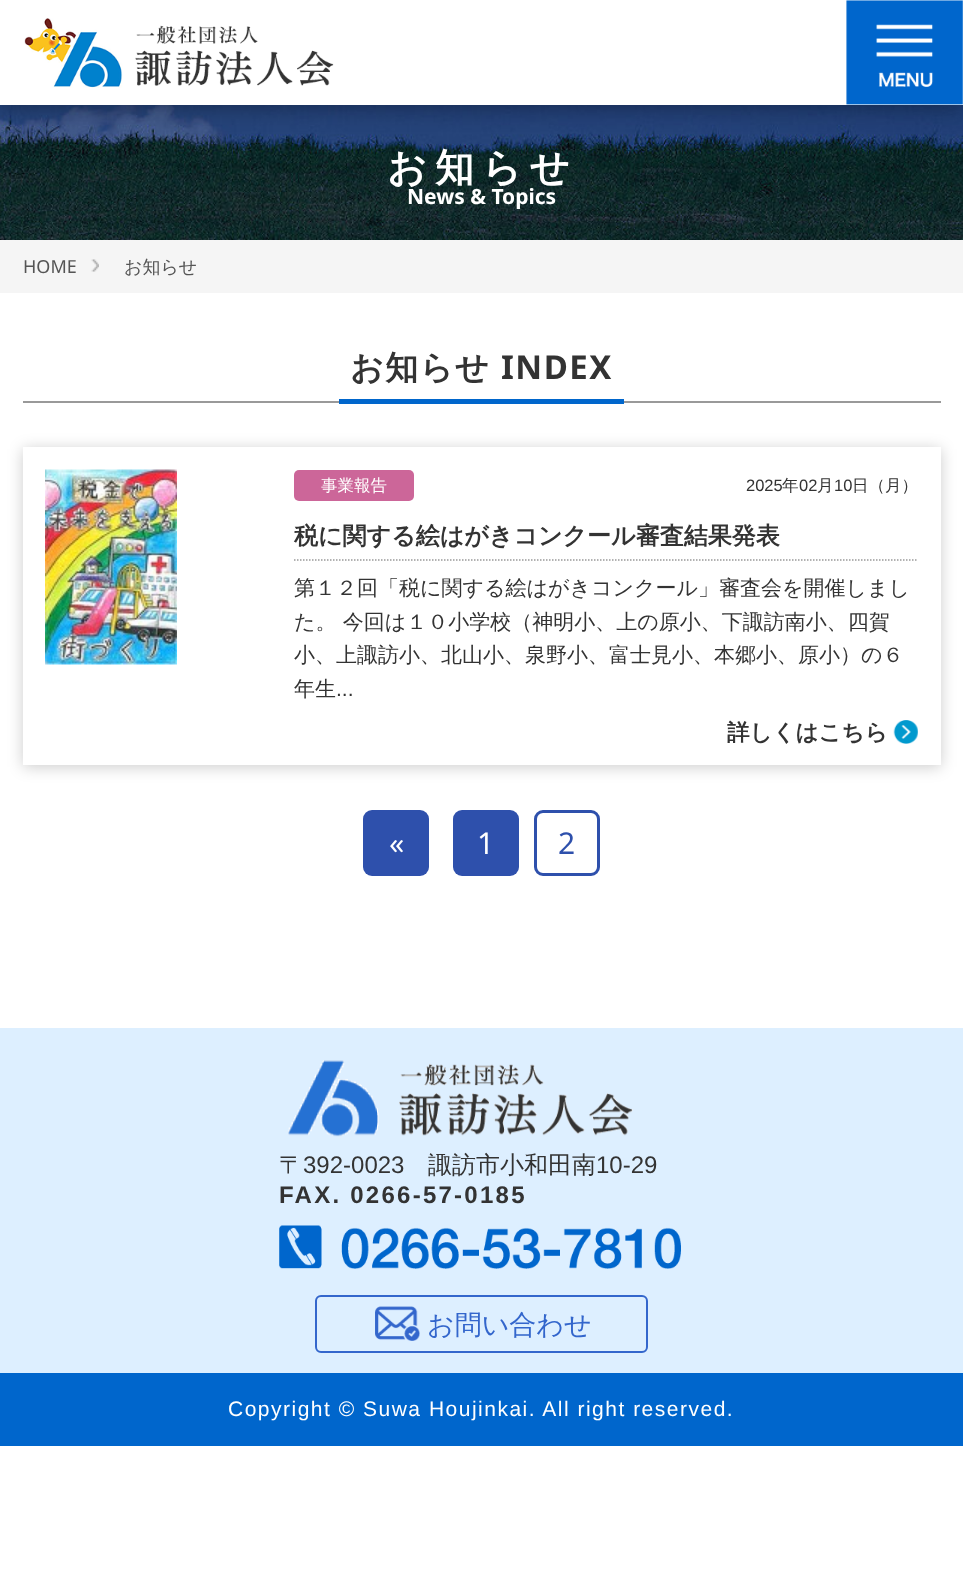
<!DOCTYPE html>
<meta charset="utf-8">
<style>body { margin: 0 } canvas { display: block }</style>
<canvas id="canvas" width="963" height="1580"></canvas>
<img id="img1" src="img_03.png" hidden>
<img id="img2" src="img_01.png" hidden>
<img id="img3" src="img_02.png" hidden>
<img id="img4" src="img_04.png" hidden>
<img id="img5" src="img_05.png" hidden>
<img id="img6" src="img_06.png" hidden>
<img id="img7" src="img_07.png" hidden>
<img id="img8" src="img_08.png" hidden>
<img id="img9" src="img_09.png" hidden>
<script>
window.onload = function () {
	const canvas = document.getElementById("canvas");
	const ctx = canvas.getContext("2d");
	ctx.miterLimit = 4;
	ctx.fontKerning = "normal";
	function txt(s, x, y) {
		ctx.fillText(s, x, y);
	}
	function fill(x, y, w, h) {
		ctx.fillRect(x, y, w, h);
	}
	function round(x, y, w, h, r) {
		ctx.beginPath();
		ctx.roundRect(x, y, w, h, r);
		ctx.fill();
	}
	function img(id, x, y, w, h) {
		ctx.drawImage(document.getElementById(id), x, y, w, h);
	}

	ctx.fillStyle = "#FFFFFF";
	fill(0, 0, 963, 1580);
	img("img1", 0, 105, 963, 135);
	ctx.fillStyle = "rgba(0, 0, 0, 0.4)";
	ctx.filter = "blur(12px)";
	ctx.beginPath();
	ctx.rect(0, 0, 963, 105);
	ctx.fill();
	ctx.filter = "none";
	ctx.fillStyle = "#FFFFFF";
	fill(0, 0, 963, 105);
	img("img2", 24, 18, 310, 70);
	img("img3", 846, 0, 117, 105);
	ctx.fillStyle = "#F5F5F5";
	fill(0, 240, 963, 53);
	img("img4", 91, 259, 8, 13);
	ctx.fillStyle = "#999999";
	fill(23, 401, 918, 2);
	ctx.fillStyle = "#0066CC";
	fill(339, 399, 285, 5);
	ctx.fillStyle = "rgba(0, 0, 0, 0.2)";
	ctx.filter = "blur(7.5px)";
	ctx.beginPath();
	ctx.rect(23, 449, 918, 318);
	ctx.fill();
	ctx.filter = "none";
	ctx.fillStyle = "#FFFFFF";
	fill(23, 447, 918, 318);
	img("img5", 45, 469, 132, 196);
	ctx.fillStyle = "#CC6699";
	round(294, 470, 120, 31, 5);
	ctx.beginPath();
	ctx.moveTo(294, 560);
	ctx.lineTo(918, 560);
	ctx.strokeStyle = "#999999";
	ctx.lineWidth = 1.5;
	ctx.setLineDash([1.5, 1.5]);
	ctx.stroke();
	img("img6", 893, 720, 25, 24);
	ctx.fillStyle = "#2E50AC";
	round(363, 810, 66, 66, 9);
	round(453, 810, 66, 66, 9);
	ctx.beginPath();
	ctx.roundRect(535.5, 811.5, 63, 63, 7.5);
	ctx.strokeStyle = "#2E50AC";
	ctx.lineWidth = 3;
	ctx.setLineDash([]);
	ctx.stroke();
	ctx.fillStyle = "#DDEFFF";
	fill(0, 1028, 963, 345);
	img("img7", 288, 1060, 345, 77);
	img("img8", 279, 1225, 402, 44);
	ctx.beginPath();
	ctx.roundRect(316, 1296, 331, 56, 5);
	ctx.strokeStyle = "#3366CC";
	ctx.lineWidth = 2;
	ctx.stroke();
	img("img9", 375, 1306, 45, 35);
	ctx.fillStyle = "#0066CC";
	fill(0, 1373, 963, 73);
	ctx.letterSpacing = "8px";
	ctx.font = "bold 39px WenQuanYi Zen Hei";
	ctx.fillStyle = "#FFFFFF";
	txt("お知らせ", 387, 181);
	ctx.letterSpacing = "0px";
	ctx.font = "bold 21px Noto Sans";
	txt("News & Topics", 407, 204);
	ctx.font = "18px Noto Sans";
	ctx.fillStyle = "#555555";
	txt("HOME", 23, 273);
	ctx.font = "500 18px WenQuanYi Zen Hei";
	txt("お知らせ", 124, 273);
	ctx.letterSpacing = "1.5px";
	ctx.font = "bold 33px WenQuanYi Zen Hei";
	ctx.fillStyle = "#333333";
	txt("お知らせ", 350, 379);
	ctx.font = "bold 33px Noto Sans";
	txt("INDEX", 501, 379);
	ctx.letterSpacing = "0px";
	ctx.font = "500 16.5px WenQuanYi Zen Hei";
	ctx.fillStyle = "#FFFFFF";
	txt("事業報告", 321, 491);
	ctx.font = "16.5px Liberation Sans";
	ctx.fillStyle = "#333333";
	txt("2025", 746, 491);
	ctx.font = "500 16.5px WenQuanYi Zen Hei";
	txt("年", 782, 491);
	ctx.font = "16.5px Liberation Sans";
	txt("02", 799, 491);
	ctx.font = "500 16.5px WenQuanYi Zen Hei";
	txt("月", 817, 491);
	ctx.font = "16.5px Liberation Sans";
	txt("10", 834, 491);
	ctx.font = "500 16.5px WenQuanYi Zen Hei";
	txt("日（月）", 852, 491);
	ctx.font = "bold 24px WenQuanYi Zen Hei";
	txt("税に関する絵はがきコンクール審査結果発表", 294, 544);
	ctx.font = "500 21px WenQuanYi Zen Hei";
	txt("第１２回「税に関する絵はがきコンクール」審査会を開催しまし", 294, 595);
	txt("た。 今回は１０小学校（神明小、上の原小、下諏訪南小、四賀", 294, 629);
	txt("小、上諏訪小、北山小、泉野小、富士見小、本郷小、原小）の６", 294, 662);
	txt("年生", 294, 696);
	ctx.font = "21px Liberation Sans";
	txt("...", 336, 696);
	ctx.font = "bold 22.5px WenQuanYi Zen Hei";
	txt("詳しくはこちら", 727, 740);
	ctx.font = "30px Noto Sans";
	ctx.fillStyle = "#FFFFFF";
	txt("«", 389, 854);
	txt("1", 477, 854);
	ctx.fillStyle = "#2E50AC";
	txt("2", 558, 854);
	ctx.font = "500 24px WenQuanYi Zen Hei";
	ctx.fillStyle = "#333333";
	txt("〒", 279, 1173);
	ctx.font = "24px Liberation Sans";
	txt("392-0023", 303, 1173);
	ctx.font = "500 24px WenQuanYi Zen Hei";
	txt("諏訪市小和田南", 428, 1173);
	ctx.font = "24px Liberation Sans";
	txt("10-29", 596, 1173);
	ctx.letterSpacing = "2.25px";
	ctx.font = "bold 24px Liberation Sans";
	txt("FAX. 0266-57-0185", 279, 1203);
	ctx.letterSpacing = "0px";
	ctx.font = "27px Noto Sans";
	ctx.fillStyle = "#3366CC";
	txt("お問い合わせ", 427, 1334);
	ctx.letterSpacing = "1.5px";
	ctx.font = "21px Liberation Sans";
	ctx.fillStyle = "#FFFFFF";
	txt("Copyright © Suwa Houjinkai. All right reserved.", 228, 1416);
};
</script>
